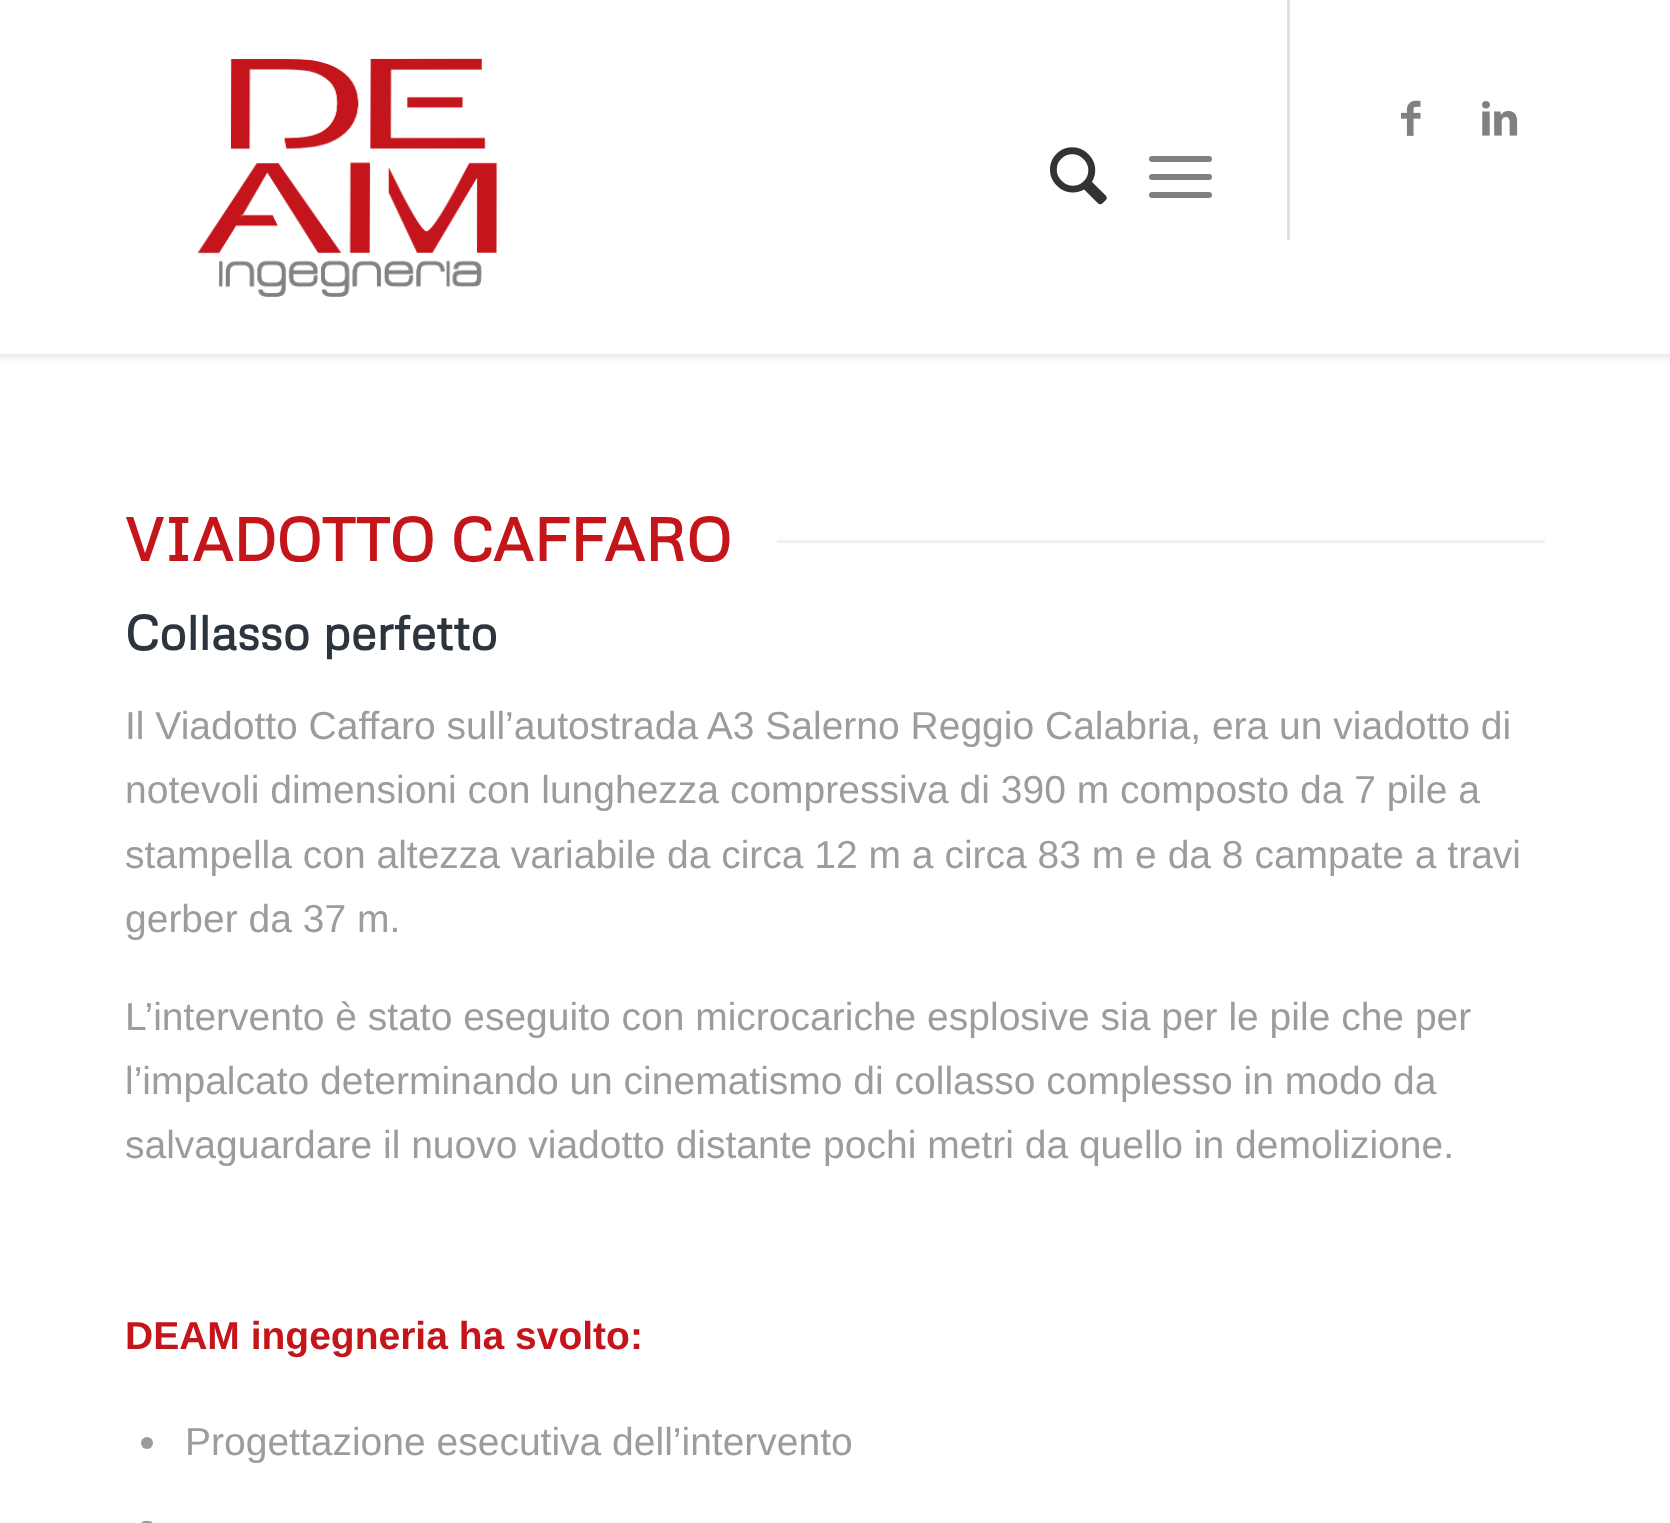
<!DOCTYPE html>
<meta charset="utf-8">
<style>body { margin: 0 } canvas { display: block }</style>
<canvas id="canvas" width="1670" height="1523"></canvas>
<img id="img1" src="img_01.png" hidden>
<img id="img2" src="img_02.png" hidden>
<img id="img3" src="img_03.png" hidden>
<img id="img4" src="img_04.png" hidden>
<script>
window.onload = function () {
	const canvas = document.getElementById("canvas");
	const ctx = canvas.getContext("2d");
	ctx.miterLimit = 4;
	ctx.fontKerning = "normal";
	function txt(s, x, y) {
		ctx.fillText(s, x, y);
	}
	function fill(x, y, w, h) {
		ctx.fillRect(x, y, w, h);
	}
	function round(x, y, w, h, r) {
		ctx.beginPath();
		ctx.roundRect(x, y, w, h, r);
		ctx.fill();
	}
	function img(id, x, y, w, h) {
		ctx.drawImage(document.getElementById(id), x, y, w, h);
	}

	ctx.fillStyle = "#FFFFFF";
	fill(0, 0, 1670, 1523);
	ctx.fillStyle = "rgba(0, 0, 0, 0.1)";
	ctx.filter = "blur(3px)";
	ctx.beginPath();
	ctx.rect(-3, -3, 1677, 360);
	ctx.fill();
	ctx.filter = "none";
	ctx.fillStyle = "#FFFFFF";
	fill(0, 0, 1670, 354);
	img("img1", 197, 58, 301, 239);
	ctx.fillStyle = "#E1E1E1";
	fill(1287, 0, 3, 240);
	img("img2", 1050, 147, 57, 58);
	ctx.fillStyle = "#808080";
	round(1149, 174, 63, 6, 3);
	round(1149, 156, 63, 6, 3);
	round(1149, 192, 63, 6, 3);
	img("img3", 1401, 100, 20, 36);
	img("img4", 1482, 101, 36, 35);
	ctx.fillStyle = "#F0F0F0";
	fill(777, 540, 768, 3);
	ctx.fillStyle = "#9C9C9C";
	ctx.beginPath();
	ctx.arc(147, 1443, 6, 0, Math.PI * 2);
	ctx.fill();
	round(141, 1521, 12, 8, 6);
	ctx.font = "bold 60px Metrophobic";
	ctx.fillStyle = "#C4151B";
	txt("VIADOTTO CAFFARO", 125, 561);
	ctx.font = "bold 48px Metrophobic";
	ctx.fillStyle = "#2C353D";
	txt("Collasso perfetto", 125, 650);
	ctx.font = "39px Liberation Sans";
	ctx.fillStyle = "#9C9C9C";
	txt("Il Viadotto Caffaro sull’autostrada A3 Salerno Reggio Calabria, era un viadotto di", 125, 739);
	txt("notevoli dimensioni con lunghezza compressiva di 390 m composto da 7 pile a", 125, 803);
	txt("stampella con altezza variabile da circa 12 m a circa 83 m e da 8 campate a travi", 125, 868);
	txt("gerber da 37 m.", 125, 932);
	txt("L’intervento è stato eseguito con microcariche esplosive sia per le pile che per", 125, 1030);
	txt("l’impalcato determinando un cinematismo di collasso complesso in modo da", 125, 1094);
	txt("salvaguardare il nuovo viadotto distante pochi metri da quello in demolizione.", 125, 1158);
	ctx.font = "bold 39px Liberation Sans";
	ctx.fillStyle = "#C4151B";
	txt("DEAM ingegneria ha svolto:", 125, 1349);
	ctx.font = "39px Liberation Sans";
	ctx.fillStyle = "#9C9C9C";
	txt("Progettazione esecutiva dell’intervento", 185, 1455);
};
</script>
